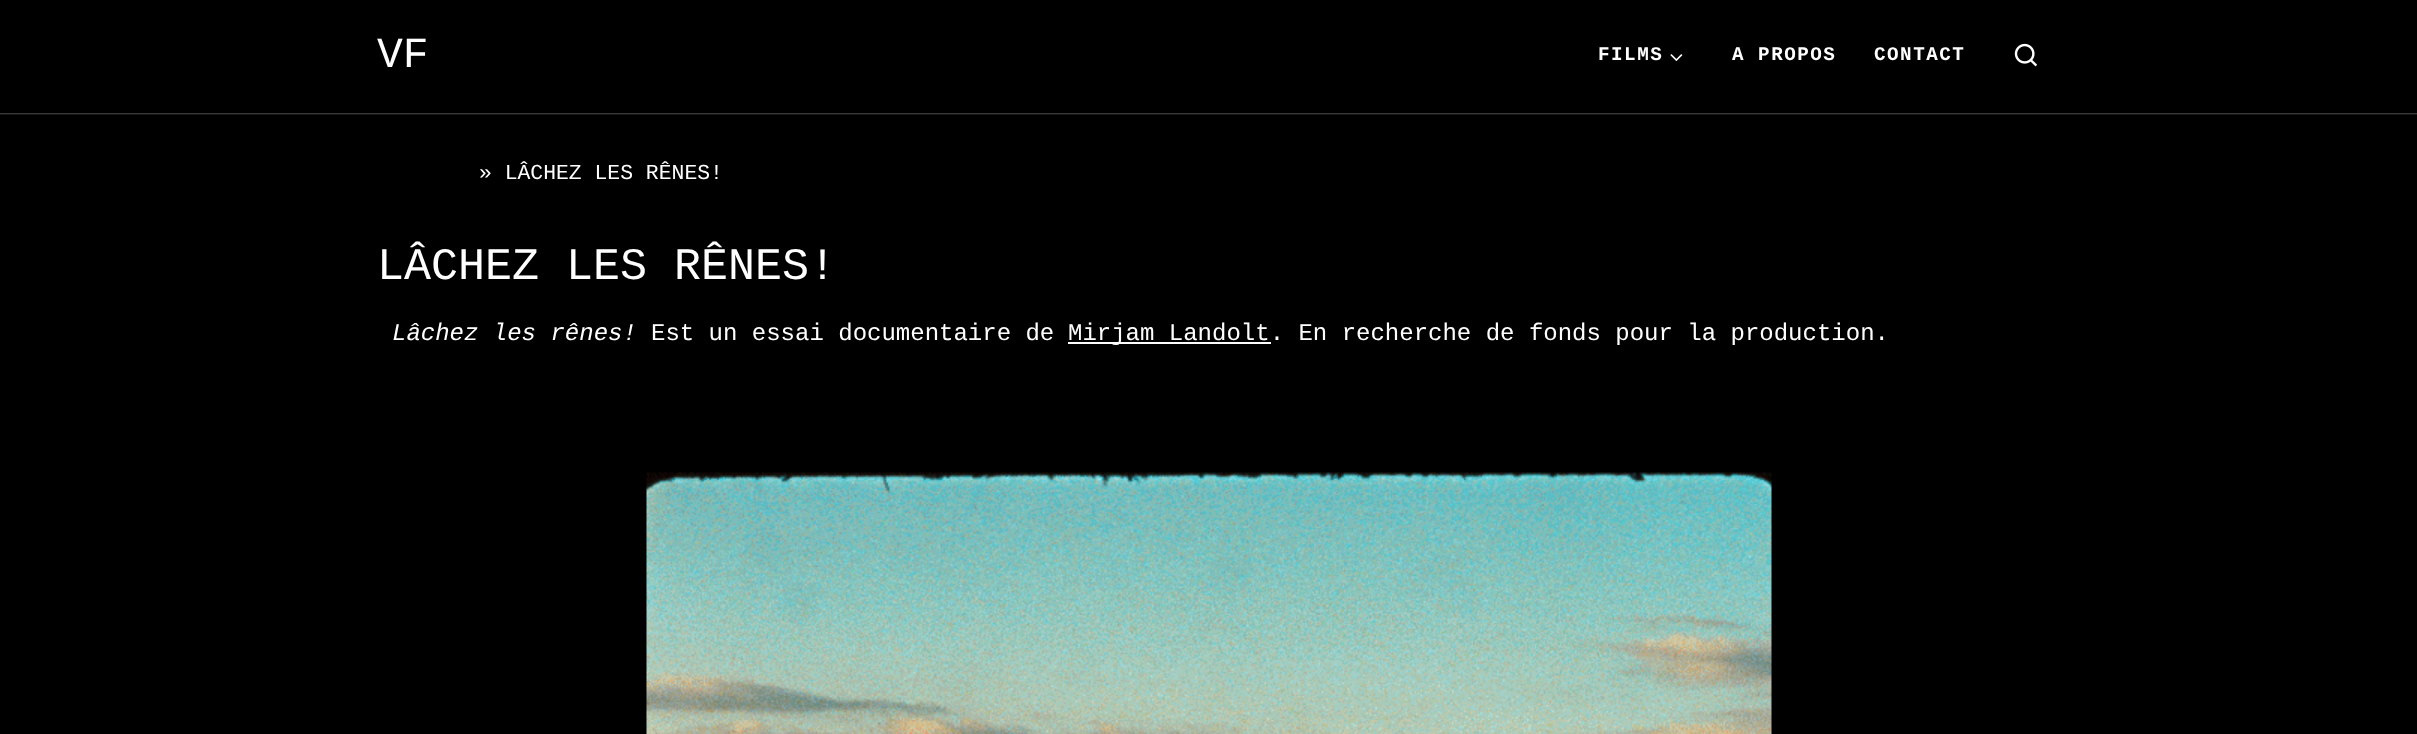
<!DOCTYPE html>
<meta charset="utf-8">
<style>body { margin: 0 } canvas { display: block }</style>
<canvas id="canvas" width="2417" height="734"></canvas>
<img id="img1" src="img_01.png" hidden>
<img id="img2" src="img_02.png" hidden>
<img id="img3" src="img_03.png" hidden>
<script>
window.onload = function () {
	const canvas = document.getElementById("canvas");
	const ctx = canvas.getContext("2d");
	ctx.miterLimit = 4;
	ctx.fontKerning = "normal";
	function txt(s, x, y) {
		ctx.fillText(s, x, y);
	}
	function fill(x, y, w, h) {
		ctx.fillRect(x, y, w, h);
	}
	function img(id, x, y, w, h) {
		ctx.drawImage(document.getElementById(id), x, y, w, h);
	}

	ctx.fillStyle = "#000000";
	fill(0, 0, 2417, 734);
	ctx.fillStyle = "rgba(255, 255, 255, 0.09)";
	fill(0, 113, 2417, 2);
	ctx.fillStyle = "rgba(255, 255, 255, 0.15)";
	fill(0, 113, 2417, 1);
	img("img1", 1670, 54, 13, 7);
	img("img2", 2014, 43, 24, 24);
	ctx.fillStyle = "#FFFFFF";
	fill(1068, 342, 203, 2);
	img("img3", 646, 472, 1126, 262);
	ctx.font = "43px Liberation Mono";
	txt("VF", 377, 67);
	ctx.letterSpacing = "1.5px";
	ctx.font = "bold 19.25px Liberation Mono";
	txt("FILMS", 1598, 60);
	txt("A PROPOS", 1732, 60);
	txt("CONTACT", 1874, 60);
	ctx.letterSpacing = "0px";
	ctx.font = "21.4px Liberation Mono";
	txt("» LÂCHEZ LES RÊNES!", 479, 179);
	ctx.font = "45px Liberation Mono";
	txt("LÂCHEZ LES RÊNES!", 377, 279);
	ctx.font = "italic 24px Liberation Mono";
	txt("Lâchez les rênes!", 392, 340);
	ctx.font = "24px Liberation Mono";
	txt("Est un essai documentaire de", 651, 340);
	txt("Mirjam Landolt. En recherche de fonds pour la production.", 1068, 340);
};
</script>
